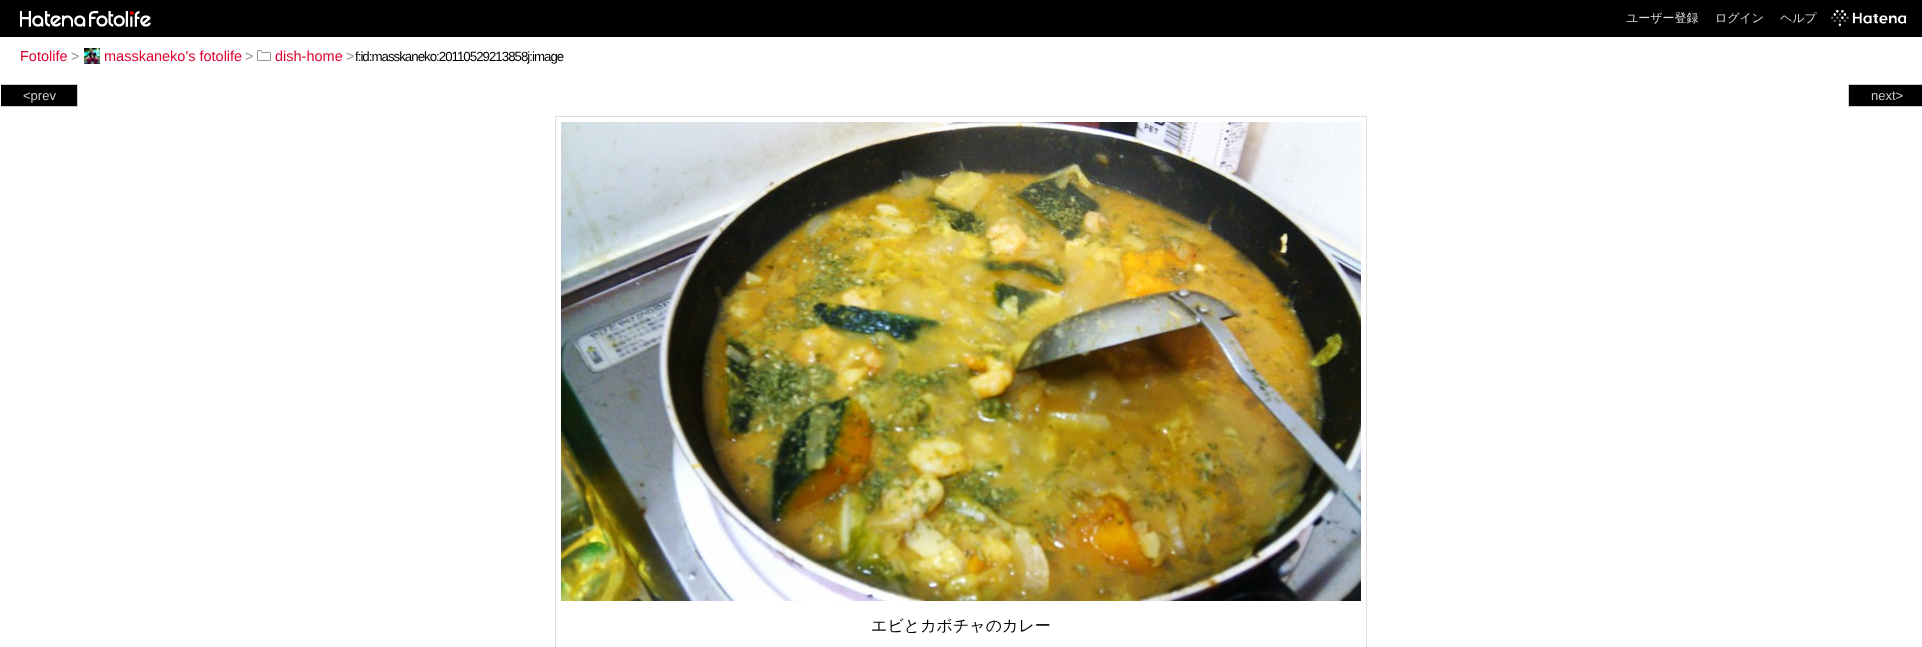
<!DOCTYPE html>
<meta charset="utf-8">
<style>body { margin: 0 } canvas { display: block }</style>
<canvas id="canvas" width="1922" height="647"></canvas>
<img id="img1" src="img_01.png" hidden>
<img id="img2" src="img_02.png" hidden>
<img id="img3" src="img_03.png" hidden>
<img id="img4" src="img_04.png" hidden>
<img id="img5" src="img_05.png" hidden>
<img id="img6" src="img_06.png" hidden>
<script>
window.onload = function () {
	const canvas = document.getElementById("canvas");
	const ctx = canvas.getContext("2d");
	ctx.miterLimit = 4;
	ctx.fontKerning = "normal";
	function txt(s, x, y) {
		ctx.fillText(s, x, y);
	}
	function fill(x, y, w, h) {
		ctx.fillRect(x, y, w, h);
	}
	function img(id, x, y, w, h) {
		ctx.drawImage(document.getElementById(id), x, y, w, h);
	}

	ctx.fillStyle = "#FFFFFF";
	fill(0, 0, 1922, 647);
	ctx.fillStyle = "#000000";
	fill(0, 0, 1922, 37);
	img("img1", 20, 11, 66, 16);
	img("img2", 89, 11, 62, 16);
	img("img3", 1831, 10, 75, 16);
	img("img4", 84, 48, 16, 16);
	img("img5", 257, 50, 14, 11);
	fill(1, 85, 76, 21);
	ctx.fillStyle = "#CCCCCC";
	fill(1, 84, 77, 1);
	fill(77, 84, 1, 23);
	fill(1, 106, 77, 1);
	ctx.fillStyle = "#000000";
	fill(1849, 85, 73, 21);
	ctx.fillStyle = "#CCCCCC";
	fill(1848, 84, 74, 1);
	fill(1848, 106, 74, 1);
	fill(1848, 84, 1, 23);
	ctx.strokeStyle = "#DEDEDE";
	ctx.strokeRect(555.5, 116.5, 811, 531);
	img("img6", 561, 122, 800, 479);
	ctx.font = "500 12px WenQuanYi Zen Hei";
	ctx.fillStyle = "#DDDDDD";
	txt("ユーザー登録", 1626, 22);
	txt("ログイン", 1715, 22);
	txt("ヘルプ", 1780, 22);
	ctx.font = "14.5px Liberation Sans";
	ctx.fillStyle = "#DE002F";
	txt("Fotolife", 20, 61);
	ctx.fillStyle = "#999999";
	txt(">", 71, 61);
	ctx.fillStyle = "#DE002F";
	txt("masskaneko's fotolife", 104, 61);
	ctx.fillStyle = "#999999";
	txt(">", 245, 61);
	ctx.fillStyle = "#DE002F";
	txt("dish-home", 275, 61);
	ctx.fillStyle = "#999999";
	txt(">", 346, 61);
	ctx.letterSpacing = "-1px";
	ctx.font = "13.3px Liberation Sans";
	ctx.fillStyle = "#000000";
	txt("f:id:masskaneko:20110529213858j:image", 355, 61);
	ctx.letterSpacing = "0px";
	ctx.font = "13px Liberation Sans";
	ctx.fillStyle = "#CCCCCC";
	txt("<prev", 23, 100);
	txt("next>", 1871, 100);
	ctx.font = "500 16px WenQuanYi Zen Hei";
	ctx.fillStyle = "#000000";
	txt("エビとカボチャのカレー", 871, 631);
};
</script>
